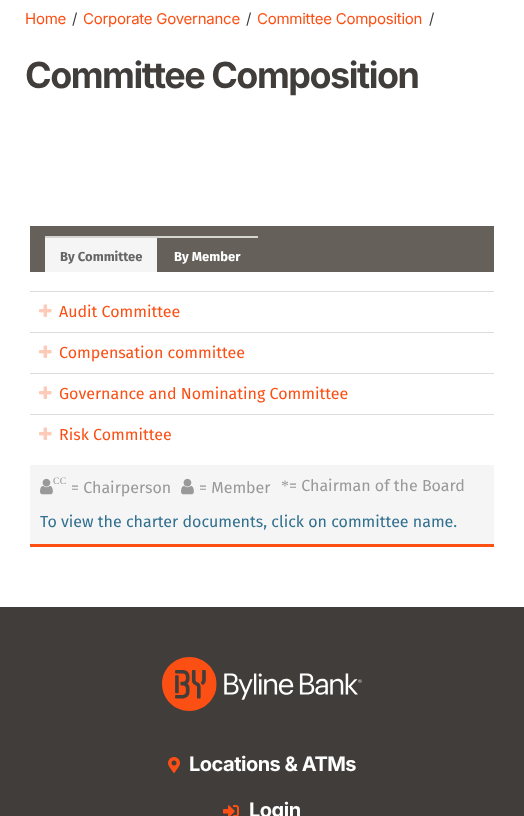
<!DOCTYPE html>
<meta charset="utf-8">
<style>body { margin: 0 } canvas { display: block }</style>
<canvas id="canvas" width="524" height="816"></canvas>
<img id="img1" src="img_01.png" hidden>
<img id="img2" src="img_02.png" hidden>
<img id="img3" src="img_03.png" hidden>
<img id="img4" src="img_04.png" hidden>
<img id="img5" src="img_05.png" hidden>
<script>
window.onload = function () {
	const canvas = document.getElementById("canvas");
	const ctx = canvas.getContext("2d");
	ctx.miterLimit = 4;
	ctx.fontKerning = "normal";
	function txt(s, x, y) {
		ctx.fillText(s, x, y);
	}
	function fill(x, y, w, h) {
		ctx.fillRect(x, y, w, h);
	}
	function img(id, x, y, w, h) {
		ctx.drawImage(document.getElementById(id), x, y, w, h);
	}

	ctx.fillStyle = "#FFFFFF";
	fill(0, 0, 524, 816);
	ctx.fillStyle = "#65605A";
	fill(30, 226, 464, 46);
	ctx.fillStyle = "#D5D6D2";
	fill(45, 236, 213, 2);
	ctx.fillStyle = "#F5F5F5";
	fill(45, 238, 112, 34);
	ctx.fillStyle = "#DDDDDD";
	fill(30, 291, 464, 1);
	img("img1", 39, 304, 13, 13);
	fill(30, 332, 464, 1);
	img("img1", 39, 345, 13, 13);
	fill(30, 373, 464, 1);
	img("img1", 39, 386, 13, 13);
	fill(30, 414, 464, 1);
	img("img1", 39, 427, 13, 13);
	ctx.fillStyle = "#F5F5F5";
	fill(30, 465, 464, 79);
	ctx.fillStyle = "#FB4F14";
	fill(30, 544, 464, 3);
	img("img2", 40, 478, 13, 17);
	img("img2", 181, 478, 13, 17);
	ctx.fillStyle = "#403D3A";
	fill(0, 607, 524, 209);
	img("img3", 162, 657, 200, 54);
	img("img4", 168, 757, 12, 16);
	img("img5", 223, 805, 16, 11);
	ctx.letterSpacing = "-0.25px";
	ctx.font = "15px Inter";
	ctx.fillStyle = "#FB4F14";
	txt("Home", 25, 24);
	ctx.fillStyle = "#403D3A";
	txt("/", 72, 24);
	ctx.fillStyle = "#FB4F14";
	txt("Corporate Governance", 83, 24);
	ctx.fillStyle = "#403D3A";
	txt("/", 246, 24);
	ctx.fillStyle = "#FB4F14";
	txt("Committee Composition", 257, 24);
	ctx.fillStyle = "#403D3A";
	txt("/", 429, 24);
	ctx.letterSpacing = "-1.5px";
	ctx.font = "bold 36px Inter";
	txt("Committee Composition", 25, 88);
	ctx.letterSpacing = "0px";
	ctx.font = "bold 13px Fira Sans";
	ctx.fillStyle = "#666666";
	txt("By Committee", 60, 261);
	ctx.fillStyle = "#FFFFFF";
	txt("By Member", 174, 261);
	ctx.font = "16px Fira Sans";
	ctx.fillStyle = "#FB4F14";
	txt("Audit Committee", 59, 317);
	txt("Compensation committee", 59, 358);
	txt("Governance and Nominating Committee", 59, 399);
	txt("Risk Committee", 59, 440);
	ctx.font = "10px Liberation Serif";
	ctx.fillStyle = "#999999";
	txt("CC", 53, 484);
	ctx.font = "16px Fira Sans";
	txt("= Chairperson", 71, 493);
	txt("= Member", 199, 493);
	ctx.font = "16px Liberation Serif";
	txt("*", 281, 491);
	ctx.font = "16px Fira Sans";
	txt("= Chairman of the Board", 289, 491);
	ctx.fillStyle = "#31708F";
	txt("To view the charter documents, click on committee name.", 40, 527);
	ctx.letterSpacing = "-0.5px";
	ctx.font = "bold 20px Inter";
	ctx.fillStyle = "#FFFFFF";
	txt("Locations & ATMs", 189, 771);
	txt("Login", 249, 817);
};
</script>
